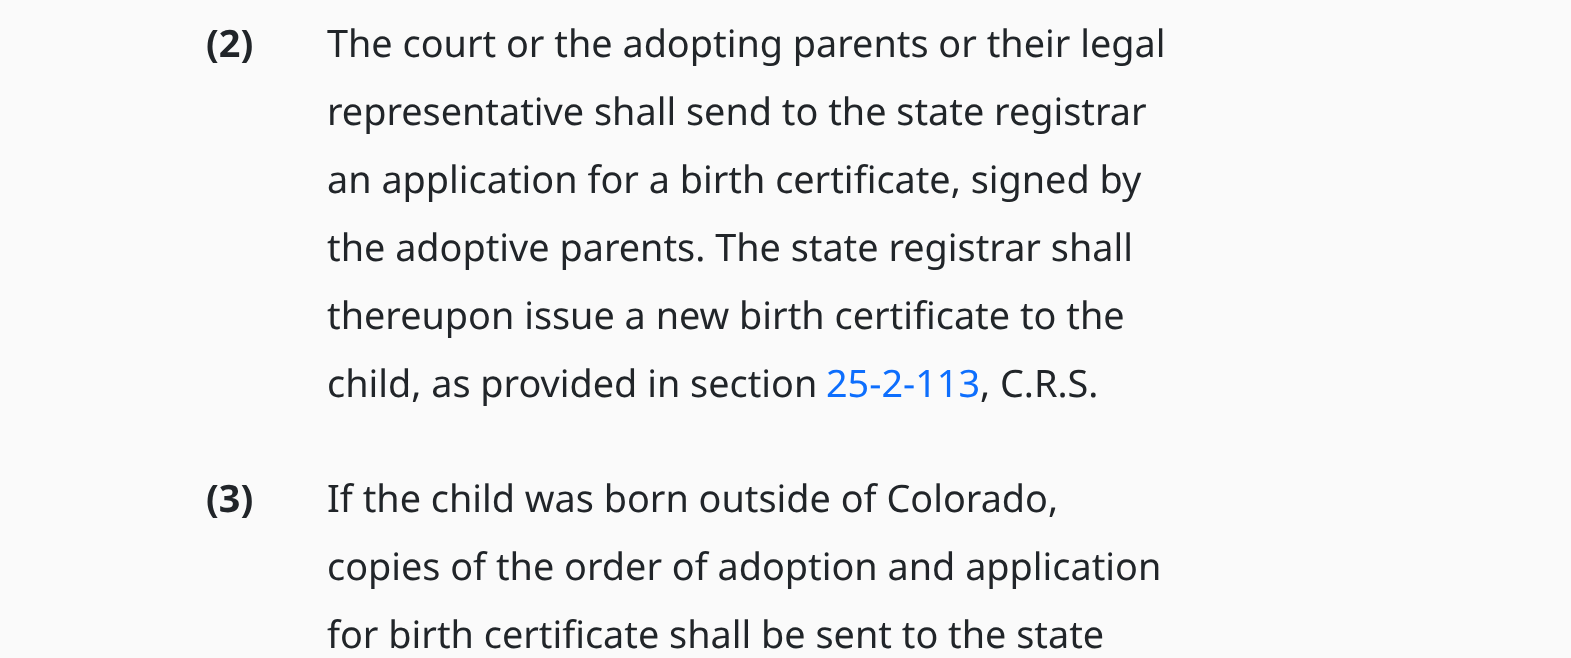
<!DOCTYPE html>
<meta charset="utf-8">
<style>body { margin: 0 } canvas { display: block }</style>
<canvas id="canvas" width="1571" height="658"></canvas>
<script>
window.onload = function () {
	const canvas = document.getElementById("canvas");
	const ctx = canvas.getContext("2d");
	ctx.miterLimit = 4;
	ctx.fontKerning = "normal";
	function txt(s, x, y) {
		ctx.fillText(s, x, y);
	}
	function fill(x, y, w, h) {
		ctx.fillRect(x, y, w, h);
	}

	ctx.fillStyle = "#FAFAFA";
	fill(0, 0, 1571, 658);
	ctx.font = "bold 37.8px Noto Sans";
	ctx.fillStyle = "#212529";
	txt("(2)", 206, 57);
	ctx.font = "37.8px Noto Sans";
	txt("The court or the adopting parents or their legal", 327, 57);
	txt("representative shall send to the state registrar", 327, 125);
	txt("an application for a birth certificate, signed by", 327, 193);
	txt("the adoptive parents. The state registrar shall", 327, 261);
	txt("thereupon issue a new birth certificate to the", 327, 329);
	txt("child, as provided in section", 327, 397);
	ctx.fillStyle = "#0D6EFD";
	txt("25-2-113", 826, 397);
	ctx.fillStyle = "#212529";
	txt(", C.R.S.", 980, 397);
	ctx.font = "bold 37.8px Noto Sans";
	txt("(3)", 206, 512);
	ctx.font = "37.8px Noto Sans";
	txt("If the child was born outside of Colorado,", 327, 512);
	txt("copies of the order of adoption and application", 327, 580);
	txt("for birth certificate shall be sent to the state", 327, 648);
};
</script>
